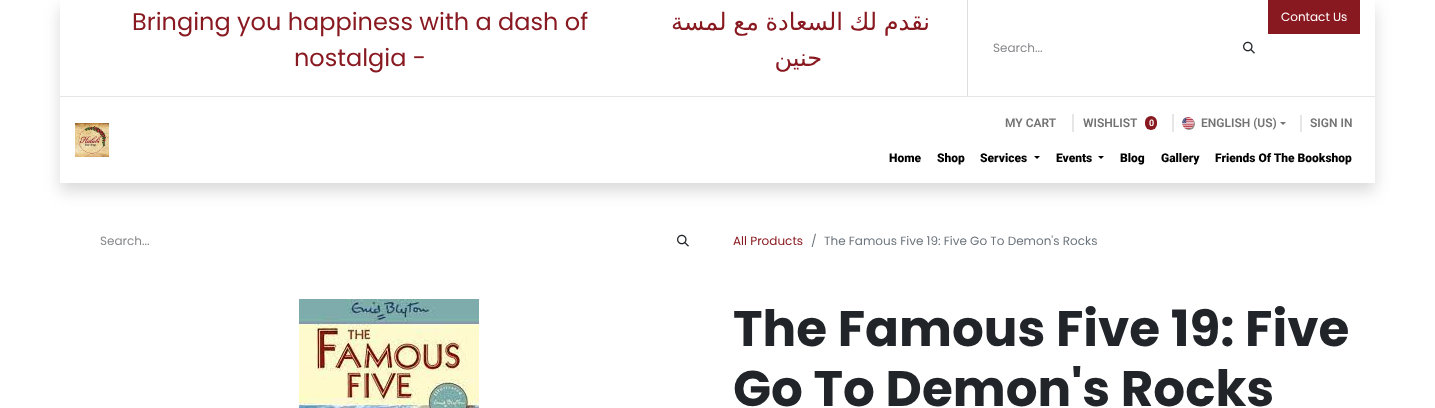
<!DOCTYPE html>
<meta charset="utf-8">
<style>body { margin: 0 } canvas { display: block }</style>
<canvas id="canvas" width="1435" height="408"></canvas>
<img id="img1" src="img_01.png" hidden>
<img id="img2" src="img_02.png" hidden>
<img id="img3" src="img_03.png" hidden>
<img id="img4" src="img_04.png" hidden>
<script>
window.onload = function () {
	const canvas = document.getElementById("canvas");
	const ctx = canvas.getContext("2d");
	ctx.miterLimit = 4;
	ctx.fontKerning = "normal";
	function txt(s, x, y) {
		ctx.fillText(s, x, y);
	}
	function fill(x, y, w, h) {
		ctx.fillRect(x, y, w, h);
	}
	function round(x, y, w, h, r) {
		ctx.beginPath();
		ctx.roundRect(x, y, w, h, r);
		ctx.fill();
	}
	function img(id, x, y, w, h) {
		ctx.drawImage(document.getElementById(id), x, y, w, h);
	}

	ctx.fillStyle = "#FFFFFF";
	fill(0, 0, 1435, 408);
	ctx.save();
	ctx.beginPath();
	ctx.moveTo(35, 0);
	ctx.lineTo(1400, 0);
	ctx.lineTo(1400, 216);
	ctx.lineTo(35, 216);
	ctx.closePath();
	ctx.moveTo(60, 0);
	ctx.lineTo(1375, 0);
	ctx.lineTo(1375, 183);
	ctx.lineTo(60, 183);
	ctx.closePath();
	ctx.clip("evenodd");
	ctx.fillStyle = "rgba(0, 0, 0, 0.15)";
	ctx.filter = "blur(8px)";
	ctx.beginPath();
	ctx.rect(60, 8, 1315, 183);
	ctx.fill();
	ctx.filter = "none";
	ctx.restore();
	ctx.fillStyle = "#E6E6E6";
	fill(60, 96, 1315, 1);
	ctx.fillStyle = "#891920";
	fill(1268, 0, 92, 34);
	ctx.fillStyle = "#DEDEDF";
	fill(967, 0, 1, 96);
	img("img1", 1243, 41, 12, 13);
	img("img2", 75, 123, 34, 34);
	ctx.fillStyle = "#E6E6E6";
	fill(1072, 114, 2, 18);
	ctx.fillStyle = "#891920";
	round(1145, 116, 12, 14, 6);
	ctx.fillStyle = "#E6E6E6";
	fill(1172, 114, 2, 18);
	ctx.fillStyle = "rgba(0, 0, 0, 0.43)";
	ctx.filter = "blur(0.5px)";
	ctx.beginPath();
	ctx.roundRect(1183, 118, 12, 12, 6);
	ctx.fill();
	ctx.filter = "none";
	img("img3", 1182, 117, 12, 12);
	ctx.fillStyle = "#737373";
	ctx.beginPath();
	ctx.moveTo(1280, 122);
	ctx.lineTo(1286, 122);
	ctx.lineTo(1283, 125);
	ctx.closePath();
	ctx.fill();
	ctx.fillStyle = "#E6E6E6";
	fill(1300, 115, 2, 17);
	ctx.fillStyle = "#000000";
	ctx.beginPath();
	ctx.moveTo(1034, 156);
	ctx.lineTo(1040, 156);
	ctx.lineTo(1037, 159);
	ctx.closePath();
	ctx.fill();
	ctx.beginPath();
	ctx.moveTo(1098, 156);
	ctx.lineTo(1104, 156);
	ctx.lineTo(1101, 159);
	ctx.closePath();
	ctx.fill();
	img("img1", 677, 234, 12, 13);
	img("img4", 299, 299, 180, 109);
	ctx.font = "24px Poppins";
	ctx.fillStyle = "#891920";
	txt("Bringing you happiness with a dash of", 132, 30);
	txt("nostalgia -", 294, 66);
	ctx.wordSpacing = "-1px";
	ctx.direction = "rtl";
	ctx.font = "24px DejaVu Sans";
	txt("نقدم لك السعادة مع لمسة", 930, 30);
	ctx.wordSpacing = "0px";
	txt("حنين", 822, 66);
	ctx.direction = "ltr";
	ctx.font = "12px Poppins";
	ctx.fillStyle = "#FFFFFF";
	txt("Contact Us", 1281, 21);
	ctx.fillStyle = "#87898C";
	txt("Search...", 993, 52);
	ctx.font = "600 12px Roboto";
	ctx.fillStyle = "#737373";
	txt("MY CART", 1005, 127);
	txt("WISHLIST", 1083, 127);
	ctx.font = "600 9px Roboto";
	ctx.fillStyle = "#FFFFFF";
	txt("0", 1149, 126);
	ctx.font = "600 12px Roboto";
	ctx.fillStyle = "#737373";
	txt("ENGLISH (US)", 1201, 127);
	txt("SIGN IN", 1310, 127);
	ctx.font = "900 12px Roboto";
	ctx.fillStyle = "#000000";
	txt("Home", 889, 162);
	txt("Shop", 937, 162);
	txt("Services", 980, 162);
	txt("Events", 1056, 162);
	txt("Blog", 1120, 162);
	txt("Gallery", 1161, 162);
	txt("Friends Of The Bookshop", 1215, 162);
	ctx.font = "12px Poppins";
	ctx.fillStyle = "#87898C";
	txt("Search...", 100, 245);
	ctx.fillStyle = "#891920";
	txt("All Products", 733, 245);
	ctx.fillStyle = "#6C757D";
	txt("/", 811, 245);
	txt("The Famous Five 19: Five Go To Demon's Rocks", 824, 245);
	ctx.font = "bold 50px Poppins";
	ctx.fillStyle = "#212529";
	txt("The Famous Five 19: Five", 733, 346);
	txt("Go To Demon's Rocks", 733, 406);
};
</script>
